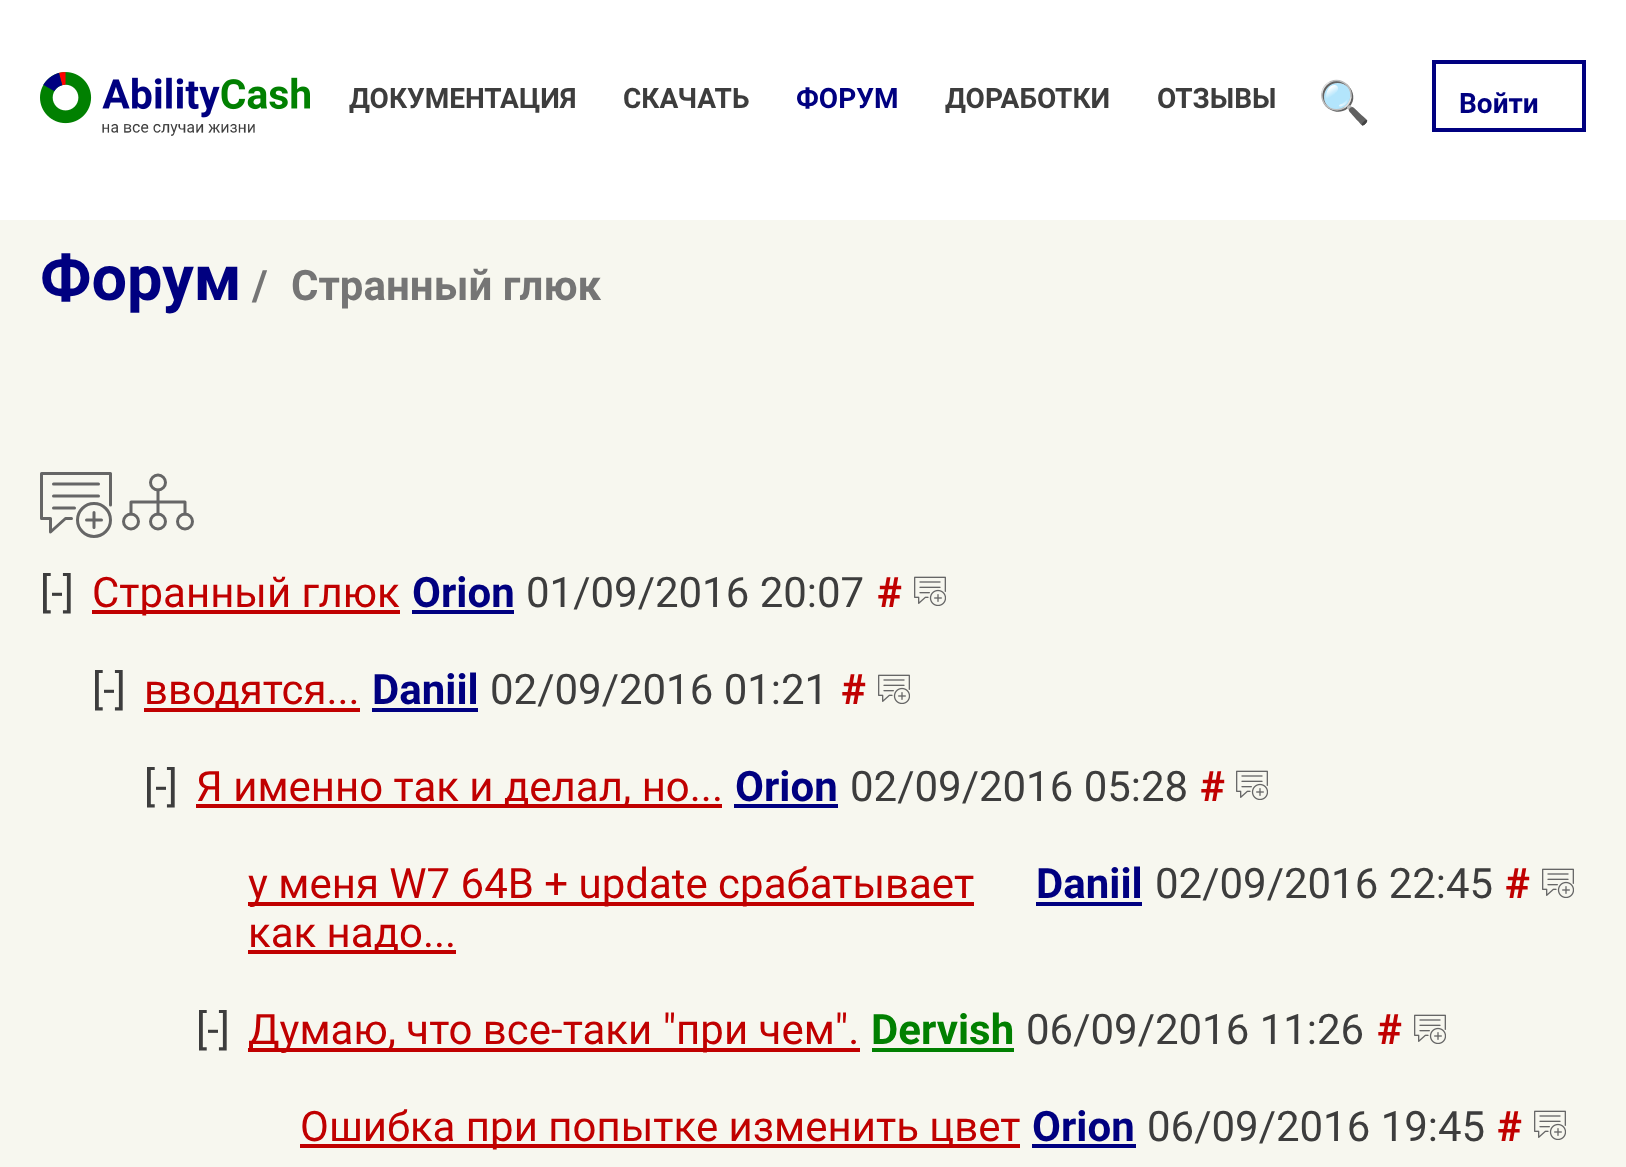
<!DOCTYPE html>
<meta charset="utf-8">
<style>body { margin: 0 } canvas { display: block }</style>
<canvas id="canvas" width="1626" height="1167"></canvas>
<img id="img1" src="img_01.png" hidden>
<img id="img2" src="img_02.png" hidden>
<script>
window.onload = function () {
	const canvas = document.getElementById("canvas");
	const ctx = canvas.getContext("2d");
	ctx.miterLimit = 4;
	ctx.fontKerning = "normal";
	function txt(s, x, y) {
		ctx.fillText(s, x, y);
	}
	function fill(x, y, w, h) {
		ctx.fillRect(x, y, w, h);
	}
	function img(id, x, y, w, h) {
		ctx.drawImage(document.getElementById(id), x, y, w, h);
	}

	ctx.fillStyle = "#F7F7EF";
	fill(0, 0, 1626, 1167);
	ctx.fillStyle = "#FFFFFF";
	fill(0, 0, 1626, 220);
	img("img1", 40, 72, 270, 64);
	ctx.strokeStyle = "#000080";
	ctx.lineWidth = 4;
	ctx.strokeRect(1434, 62, 150, 68);
	ctx.beginPath();
	ctx.moveTo(71.5, 518.5);
	ctx.lineTo(65.5, 518.5);
	ctx.lineTo(50.5, 532);
	ctx.lineTo(50.5, 518.5);
	ctx.lineTo(41.5, 518.5);
	ctx.lineTo(41.5, 473.5);
	ctx.lineTo(110.5, 473.5);
	ctx.lineTo(110.5, 505);
	ctx.strokeStyle = "#666666";
	ctx.lineWidth = 3;
	ctx.lineCap = "round";
	ctx.lineJoin = "round";
	ctx.stroke();
	ctx.beginPath();
	ctx.arc(158, 482.5, 7.5, 0, Math.PI * 2);
	ctx.stroke();
	ctx.beginPath();
	ctx.moveTo(53.5, 484);
	ctx.lineTo(98.5, 484);
	ctx.moveTo(53.5, 496);
	ctx.lineTo(98.5, 496);
	ctx.moveTo(53.5, 508);
	ctx.lineTo(74.5, 508);
	ctx.moveTo(94, 512.5);
	ctx.lineTo(94, 527.5);
	ctx.moveTo(86.5, 520);
	ctx.lineTo(101.5, 520);
	ctx.stroke();
	ctx.beginPath();
	ctx.arc(131, 521.5, 7.5, 0, Math.PI * 2);
	ctx.stroke();
	ctx.beginPath();
	ctx.arc(158, 521.5, 7.5, 0, Math.PI * 2);
	ctx.stroke();
	ctx.beginPath();
	ctx.arc(185, 521.5, 7.5, 0, Math.PI * 2);
	ctx.stroke();
	ctx.beginPath();
	ctx.moveTo(158, 514);
	ctx.lineTo(158, 490);
	ctx.moveTo(131, 514);
	ctx.lineTo(131, 502);
	ctx.lineTo(185, 502);
	ctx.lineTo(185, 514);
	ctx.stroke();
	ctx.beginPath();
	ctx.arc(94, 520, 16.5, 0, Math.PI * 2);
	ctx.stroke();
	ctx.fillStyle = "#C00000";
	fill(92, 610, 308, 4);
	ctx.fillStyle = "#000080";
	fill(412, 610, 102, 4);
	img("img2", 914, 576, 32, 30);
	ctx.fillStyle = "#C00000";
	fill(144, 708, 216, 4);
	ctx.fillStyle = "#000080";
	fill(372, 708, 106, 4);
	img("img2", 878, 674, 32, 30);
	ctx.fillStyle = "#C00000";
	fill(196, 804, 526, 4);
	ctx.fillStyle = "#000080";
	fill(734, 804, 104, 4);
	img("img2", 1236, 770, 32, 30);
	ctx.fillStyle = "#C00000";
	fill(248, 902, 726, 4);
	fill(248, 950, 208, 4);
	ctx.fillStyle = "#000080";
	fill(1036, 902, 106, 4);
	img("img2", 1542, 868, 32, 30);
	ctx.fillStyle = "#C00000";
	fill(248, 1048, 612, 4);
	ctx.fillStyle = "#018001";
	fill(872, 1048, 142, 4);
	img("img2", 1414, 1014, 32, 30);
	ctx.fillStyle = "#C00000";
	fill(300, 1144, 720, 4);
	ctx.fillStyle = "#000080";
	fill(1032, 1144, 104, 4);
	img("img2", 1534, 1110, 32, 30);
	ctx.font = "bold 28px Roboto";
	ctx.fillStyle = "#3D3D3D";
	txt("ДОКУМЕНТАЦИЯ", 349, 108);
	txt("СКАЧАТЬ", 623, 108);
	ctx.fillStyle = "#000080";
	txt("ФОРУМ", 796, 108);
	ctx.fillStyle = "#3D3D3D";
	txt("ДОРАБОТКИ", 945, 108);
	txt("ОТЗЫВЫ", 1157, 108);
	ctx.font = "bold 42px Noto Color Emoji";
	txt("🔍", 1318, 117);
	ctx.font = "bold 28px Roboto";
	ctx.fillStyle = "#000080";
	txt("Войти", 1459, 113);
	ctx.font = "bold 63px Roboto";
	txt("Форум", 40, 300);
	ctx.font = "bold 42px Roboto";
	ctx.fillStyle = "#757575";
	txt("/", 252, 300);
	txt("Странный глюк", 291, 300);
	ctx.font = "42px Roboto";
	ctx.fillStyle = "#3D3D3D";
	txt("[-]", 40, 607);
	ctx.fillStyle = "#C00000";
	txt("Странный глюк", 92, 607);
	ctx.font = "bold 42px Roboto";
	ctx.fillStyle = "#000080";
	txt("Orion", 412, 607);
	ctx.font = "42px Roboto";
	ctx.fillStyle = "#3D3D3D";
	txt("01/09/2016 20:07", 526, 607);
	ctx.font = "bold 42px Roboto";
	ctx.fillStyle = "#C00000";
	txt("#", 877, 607);
	ctx.font = "42px Roboto";
	ctx.fillStyle = "#3D3D3D";
	txt("[-]", 92, 704);
	ctx.fillStyle = "#C00000";
	txt("вводятся...", 144, 704);
	ctx.font = "bold 42px Roboto";
	ctx.fillStyle = "#000080";
	txt("Daniil", 372, 704);
	ctx.font = "42px Roboto";
	ctx.fillStyle = "#3D3D3D";
	txt("02/09/2016 01:21", 490, 704);
	ctx.font = "bold 42px Roboto";
	ctx.fillStyle = "#C00000";
	txt("#", 841, 704);
	ctx.font = "42px Roboto";
	ctx.fillStyle = "#3D3D3D";
	txt("[-]", 144, 801);
	ctx.fillStyle = "#C00000";
	txt("Я именно так и делал, но...", 196, 801);
	ctx.font = "bold 42px Roboto";
	ctx.fillStyle = "#000080";
	txt("Orion", 735, 801);
	ctx.font = "42px Roboto";
	ctx.fillStyle = "#3D3D3D";
	txt("02/09/2016 05:28", 850, 801);
	ctx.font = "bold 42px Roboto";
	ctx.fillStyle = "#C00000";
	txt("#", 1200, 801);
	ctx.font = "42px Roboto";
	txt("у меня W7 64B + update срабатывает", 248, 898);
	txt("как надо...", 248, 947);
	ctx.font = "bold 42px Roboto";
	ctx.fillStyle = "#000080";
	txt("Daniil", 1036, 898);
	ctx.font = "42px Roboto";
	ctx.fillStyle = "#3D3D3D";
	txt("02/09/2016 22:45", 1155, 898);
	ctx.font = "bold 42px Roboto";
	ctx.fillStyle = "#C00000";
	txt("#", 1505, 898);
	ctx.font = "42px Roboto";
	ctx.fillStyle = "#3D3D3D";
	txt("[-]", 196, 1044);
	ctx.fillStyle = "#C00000";
	txt("Думаю, что все-таки \"при чем\".", 248, 1044);
	ctx.font = "bold 42px Roboto";
	ctx.fillStyle = "#018001";
	txt("Dervish", 871, 1044);
	ctx.font = "42px Roboto";
	ctx.fillStyle = "#3D3D3D";
	txt("06/09/2016 11:26", 1026, 1044);
	ctx.font = "bold 42px Roboto";
	ctx.fillStyle = "#C00000";
	txt("#", 1377, 1044);
	ctx.font = "42px Roboto";
	txt("Ошибка при попытке изменить цвет", 300, 1141);
	ctx.font = "bold 42px Roboto";
	ctx.fillStyle = "#000080";
	txt("Orion", 1032, 1141);
	ctx.font = "42px Roboto";
	ctx.fillStyle = "#3D3D3D";
	txt("06/09/2016 19:45", 1147, 1141);
	ctx.font = "bold 42px Roboto";
	ctx.fillStyle = "#C00000";
	txt("#", 1497, 1141);
};
</script>
